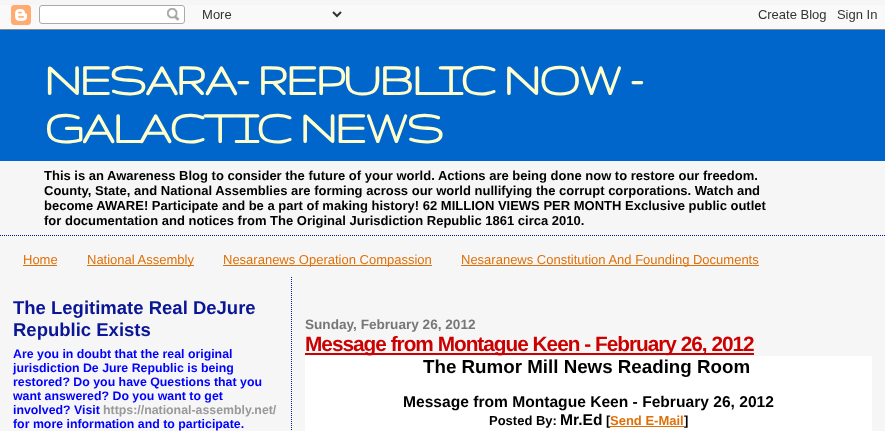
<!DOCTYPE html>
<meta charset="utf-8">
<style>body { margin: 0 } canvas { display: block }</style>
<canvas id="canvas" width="885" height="431"></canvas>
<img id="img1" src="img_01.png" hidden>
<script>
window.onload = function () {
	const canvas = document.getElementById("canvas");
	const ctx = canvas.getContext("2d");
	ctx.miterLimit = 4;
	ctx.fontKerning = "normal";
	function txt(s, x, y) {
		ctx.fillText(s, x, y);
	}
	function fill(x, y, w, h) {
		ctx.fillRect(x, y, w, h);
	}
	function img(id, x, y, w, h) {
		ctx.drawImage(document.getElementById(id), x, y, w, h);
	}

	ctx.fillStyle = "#F6F6F6";
	fill(0, 0, 885, 431);
	img("img1", 0, 5, 885, 25);
	ctx.beginPath();
	ctx.moveTo(0, 235.5);
	ctx.lineTo(885, 235.5);
	ctx.strokeStyle = "#0A1696";
	ctx.setLineDash([1, 1]);
	ctx.stroke();
	ctx.fillStyle = "#0066CC";
	fill(0, 30, 885, 131);
	ctx.fillStyle = "#DE7008";
	fill(23, 265, 34, 1);
	fill(87, 265, 107, 1);
	fill(223, 265, 209, 1);
	fill(461, 265, 298, 1);
	ctx.beginPath();
	ctx.moveTo(291.5, 277);
	ctx.lineTo(291.5, 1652);
	ctx.stroke();
	ctx.fillStyle = "#CC0000";
	fill(305, 353, 449, 2);
	ctx.fillStyle = "#FFFFFF";
	fill(305, 356, 567, 75);
	ctx.letterSpacing = "-2px";
	ctx.font = "bold 50px Gruppo";
	ctx.fillStyle = "#FFFFCC";
	txt("NESARA- REPUBLIC NOW -", 44, 95);
	txt("GALACTIC NEWS", 44, 143);
	ctx.letterSpacing = "0px";
	ctx.font = "bold 13px Liberation Sans";
	ctx.fillStyle = "#000000";
	txt("This is an Awareness Blog to consider the future of your world. Actions are being done now to restore our freedom.", 44, 180);
	txt("County, State, and National Assemblies are forming across our world nullifying the corrupt corporations. Watch and", 44, 195);
	txt("become AWARE! Participate and be a part of making history! 62 MILLION VIEWS PER MONTH Exclusive public outlet", 44, 210);
	txt("for documentation and notices from The Original Jurisdiction Republic 1861 circa 2010.", 44, 225);
	ctx.font = "13px Liberation Sans";
	ctx.fillStyle = "#DE7008";
	txt("Home", 23, 264);
	txt("National Assembly", 87, 264);
	txt("Nesaranews Operation Compassion", 223, 264);
	txt("Nesaranews Constitution And Founding Documents", 461, 264);
	ctx.font = "bold 18.5px Liberation Sans";
	ctx.fillStyle = "#0A1696";
	txt("The Legitimate Real DeJure", 13, 314);
	txt("Republic Exists", 13, 336);
	ctx.font = "bold 12.35px Liberation Sans";
	ctx.fillStyle = "#0000FF";
	txt("Are you in doubt that the real original", 13, 358);
	txt("jurisdiction De Jure Republic is being", 13, 372);
	txt("restored? Do you have Questions that you", 13, 386);
	txt("want answered? Do you want to get", 13, 400);
	txt("involved? Visit", 13, 414);
	ctx.fillStyle = "#999999";
	txt("https://national-assembly.net/", 103, 414);
	ctx.fillStyle = "#0000FF";
	txt("for more information and to participate.", 13, 428);
	ctx.font = "bold 13.6px Liberation Sans";
	ctx.fillStyle = "#777777";
	txt("Sunday, February 26, 2012", 305, 329);
	ctx.letterSpacing = "-1px";
	ctx.font = "bold 20.8px Liberation Sans";
	ctx.fillStyle = "#CC0000";
	txt("Message from Montague Keen - February 26, 2012", 305, 351);
	ctx.letterSpacing = "0px";
	ctx.font = "bold 18.75px Liberation Sans";
	ctx.fillStyle = "#000000";
	txt("The Rumor Mill News Reading Room", 423, 373);
	ctx.font = "bold 15.6px Liberation Sans";
	txt("Message from Montague Keen - February 26, 2012", 403, 407);
	ctx.font = "bold 13px Liberation Sans";
	txt("Posted By:", 489, 425);
	ctx.font = "bold 15.6px Liberation Sans";
	txt("Mr.Ed", 560, 425);
	ctx.font = "bold 13px Liberation Sans";
	txt("[", 606, 425);
	ctx.fillStyle = "#DE7008";
	fill(610, 426, 74, 1);
	txt("Send E-Mail", 610, 425);
	ctx.fillStyle = "#000000";
	txt("]", 684, 425);
};
</script>
